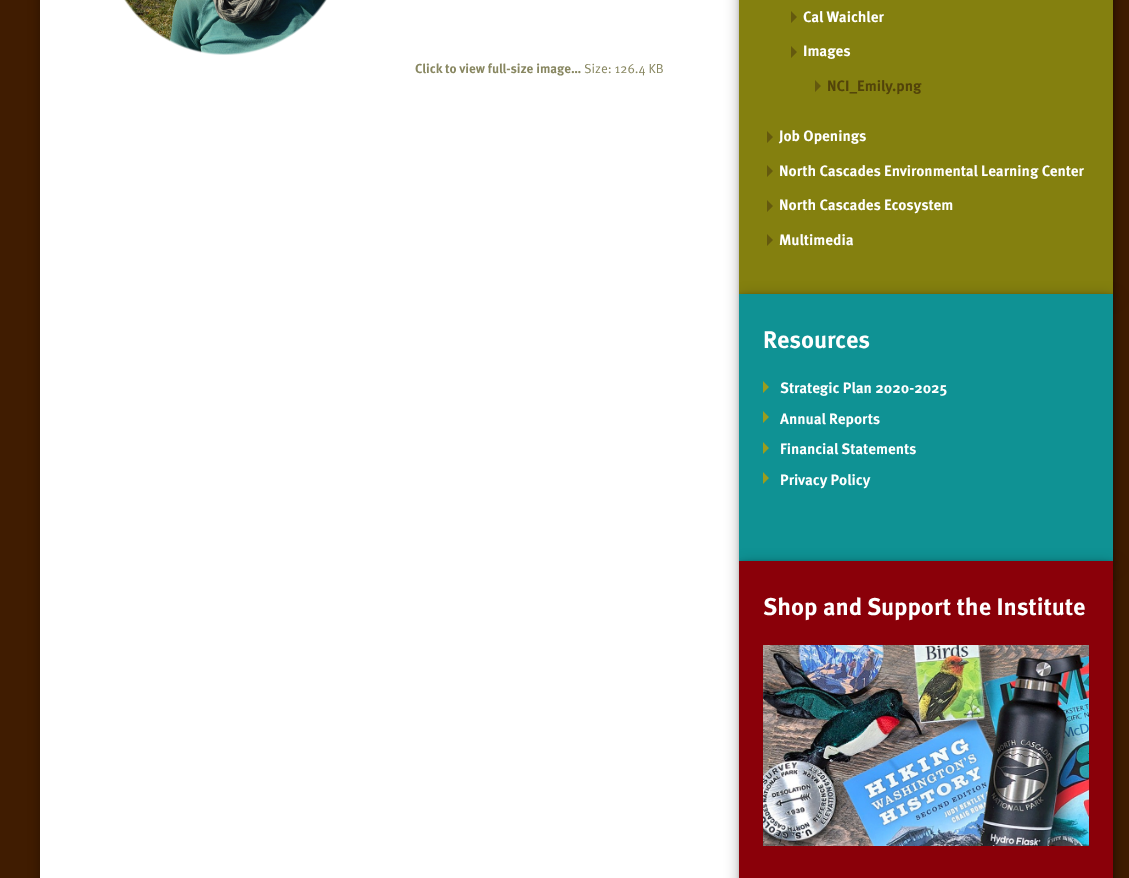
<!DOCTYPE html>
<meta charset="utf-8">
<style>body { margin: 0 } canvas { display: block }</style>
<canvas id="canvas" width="1129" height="878"></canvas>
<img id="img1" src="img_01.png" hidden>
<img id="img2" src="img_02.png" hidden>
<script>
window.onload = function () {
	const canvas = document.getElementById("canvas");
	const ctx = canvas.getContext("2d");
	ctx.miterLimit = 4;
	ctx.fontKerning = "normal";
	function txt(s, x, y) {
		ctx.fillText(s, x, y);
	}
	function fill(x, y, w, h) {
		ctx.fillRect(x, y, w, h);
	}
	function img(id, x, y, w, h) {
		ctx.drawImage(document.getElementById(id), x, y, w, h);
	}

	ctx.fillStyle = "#401C01";
	fill(0, 0, 1129, 878);
	ctx.fillStyle = "rgba(0, 0, 0, 0.33)";
	ctx.filter = "blur(6px)";
	ctx.beginPath();
	ctx.rect(40, -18, 1049, 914);
	ctx.fill();
	ctx.filter = "none";
	ctx.fillStyle = "#FFFFFF";
	fill(40, 0, 699, 878);
	img("img1", 124, 0, 203, 55);
	ctx.fillStyle = "rgba(0, 0, 0, 0.33)";
	ctx.filter = "blur(8px)";
	ctx.beginPath();
	ctx.rect(740, -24, 374, 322);
	ctx.fill();
	ctx.filter = "none";
	ctx.fillStyle = "rgba(0, 0, 0, 0.25)";
	ctx.filter = "blur(2px)";
	ctx.beginPath();
	ctx.rect(740, -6, 374, 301);
	ctx.fill();
	ctx.filter = "none";
	ctx.fillStyle = "#84800F";
	fill(739, 0, 374, 294);
	ctx.fillStyle = "#64590E";
	ctx.beginPath();
	ctx.moveTo(797, 17);
	ctx.lineTo(791, 23);
	ctx.lineTo(791, 11);
	ctx.closePath();
	ctx.moveTo(797, 52);
	ctx.lineTo(791, 58);
	ctx.lineTo(791, 46);
	ctx.closePath();
	ctx.fill("evenodd");
	ctx.beginPath();
	ctx.moveTo(821, 86);
	ctx.lineTo(815, 92);
	ctx.lineTo(815, 80);
	ctx.closePath();
	ctx.moveTo(773, 137);
	ctx.lineTo(767, 143);
	ctx.lineTo(767, 131);
	ctx.closePath();
	ctx.fill("evenodd");
	ctx.beginPath();
	ctx.moveTo(773, 171);
	ctx.lineTo(767, 177);
	ctx.lineTo(767, 165);
	ctx.closePath();
	ctx.moveTo(773, 206);
	ctx.lineTo(767, 212);
	ctx.lineTo(767, 200);
	ctx.closePath();
	ctx.fill("evenodd");
	ctx.beginPath();
	ctx.moveTo(773, 240);
	ctx.lineTo(767, 246);
	ctx.lineTo(767, 234);
	ctx.closePath();
	ctx.fill("evenodd");
	ctx.fillStyle = "rgba(0, 0, 0, 0.33)";
	ctx.filter = "blur(8px)";
	ctx.beginPath();
	ctx.rect(740, 298, 374, 267);
	ctx.fill();
	ctx.filter = "none";
	ctx.fillStyle = "rgba(0, 0, 0, 0.25)";
	ctx.filter = "blur(2px)";
	ctx.beginPath();
	ctx.rect(740, 295, 374, 267);
	ctx.fill();
	ctx.filter = "none";
	ctx.fillStyle = "#0F9294";
	fill(739, 294, 374, 267);
	ctx.fillStyle = "#9B9D1E";
	ctx.beginPath();
	ctx.moveTo(769, 387);
	ctx.lineTo(763, 393);
	ctx.lineTo(763, 381);
	ctx.closePath();
	ctx.moveTo(769, 417);
	ctx.lineTo(763, 423);
	ctx.lineTo(763, 411);
	ctx.closePath();
	ctx.fill("evenodd");
	ctx.beginPath();
	ctx.moveTo(769, 448);
	ctx.lineTo(763, 454);
	ctx.lineTo(763, 442);
	ctx.closePath();
	ctx.moveTo(769, 478);
	ctx.lineTo(763, 484);
	ctx.lineTo(763, 472);
	ctx.closePath();
	ctx.fill("evenodd");
	ctx.fillStyle = "rgba(0, 0, 0, 0.33)";
	ctx.filter = "blur(8px)";
	ctx.beginPath();
	ctx.rect(740, 565, 374, 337);
	ctx.fill();
	ctx.filter = "none";
	ctx.fillStyle = "rgba(0, 0, 0, 0.25)";
	ctx.filter = "blur(2px)";
	ctx.beginPath();
	ctx.rect(740, 562, 374, 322);
	ctx.fill();
	ctx.filter = "none";
	ctx.fillStyle = "#8A0009";
	fill(739, 561, 374, 317);
	img("img2", 763, 645, 326, 201);
	ctx.font = "bold 13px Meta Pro";
	ctx.fillStyle = "#888761";
	txt("Click to view full-size image…", 415, 73);
	ctx.font = "13px Meta Pro";
	txt("Size: 126.4 KB", 584, 73);
	ctx.font = "bold 15px Meta Pro";
	ctx.fillStyle = "#FFFFFF";
	txt("Cal Waichler", 803, 22);
	txt("Images", 803, 56);
	ctx.fillStyle = "#52430A";
	txt("NCI_Emily.png", 827, 91);
	ctx.fillStyle = "#FFFFFF";
	txt("Job Openings", 779, 141);
	txt("North Cascades Environmental Learning Center", 779, 176);
	txt("North Cascades Ecosystem", 779, 210);
	txt("Multimedia", 779, 245);
	ctx.font = "bold 24px Meta Pro";
	txt("Resources", 763, 348);
	ctx.font = "bold 15px Meta Pro";
	txt("Strategic Plan 2020-2025", 780, 393);
	txt("Annual Reports", 780, 424);
	txt("Financial Statements", 780, 454);
	txt("Privacy Policy", 780, 485);
	ctx.font = "bold 24px Meta Pro";
	txt("Shop and Support the Institute", 763, 615);
};
</script>
